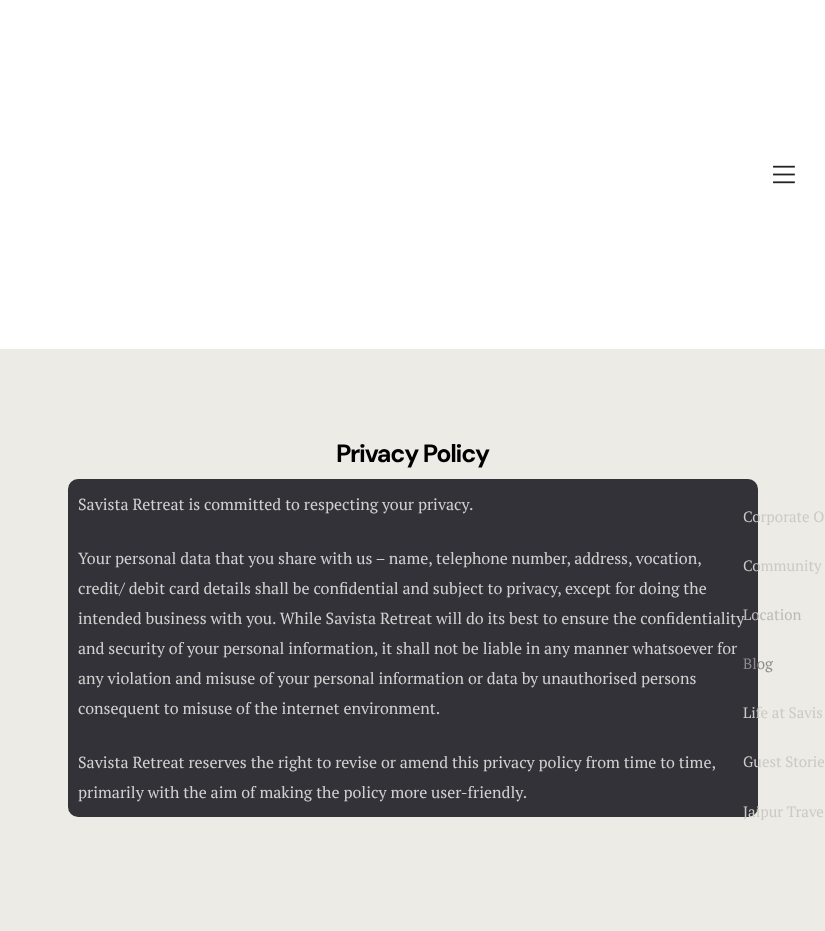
<!DOCTYPE html>
<meta charset="utf-8">
<style>body { margin: 0 } canvas { display: block }</style>
<canvas id="canvas" width="825" height="931"></canvas>
<img id="img1" src="img_01.png" hidden>
<script>
window.onload = function () {
	const canvas = document.getElementById("canvas");
	const ctx = canvas.getContext("2d");
	ctx.miterLimit = 4;
	ctx.fontKerning = "normal";
	function txt(s, x, y) {
		ctx.fillText(s, x, y);
	}
	function fill(x, y, w, h) {
		ctx.fillRect(x, y, w, h);
	}
	function round(x, y, w, h, r) {
		ctx.beginPath();
		ctx.roundRect(x, y, w, h, r);
		ctx.fill();
	}
	function img(id, x, y, w, h) {
		ctx.drawImage(document.getElementById(id), x, y, w, h);
	}

	ctx.fillStyle = "#EDEBE5";
	fill(0, 0, 825, 931);
	ctx.fillStyle = "#333239";
	round(68, 479, 690, 338, 10);
	ctx.fillStyle = "#FFFFFF";
	fill(0, 0, 825, 349);
	img("img1", 773, 165, 22, 19);
	ctx.letterSpacing = "-1.25px";
	ctx.font = "bold 25px DM Sans";
	ctx.fillStyle = "#000000";
	txt("Privacy Policy", 336, 462);
	ctx.letterSpacing = "0px";
	ctx.font = "16px PT Serif";
	ctx.fillStyle = "#D1D1D1";
	txt("Savista Retreat is committed to respecting your privacy.", 78, 510);
	txt("Your personal data that you share with us – name, telephone number, address, vocation,", 78, 564);
	txt("credit/ debit card details shall be confidential and subject to privacy, except for doing the", 78, 594);
	txt("intended business with you. While Savista Retreat will do its best to ensure the confidentiality", 78, 624);
	txt("and security of your personal information, it shall not be liable in any manner whatsoever for", 78, 654);
	txt("any violation and misuse of your personal information or data by unauthorised persons", 78, 684);
	txt("consequent to misuse of the internet environment.", 78, 714);
	txt("Savista Retreat reserves the right to revise or amend this privacy policy from time to time,", 78, 768);
	txt("primarily with the aim of making the policy more user-friendly.", 78, 798);
	ctx.font = "15px PT Serif";
	ctx.fillStyle = "#CBCAC6";
	txt("Corporate O", 743, 522);
	txt("Community", 743, 571);
	ctx.fillStyle = "#BDBBB9";
	txt("Location", 743, 620);
	ctx.fillStyle = "#8E8C8D";
	txt("Blog", 743, 669);
	ctx.fillStyle = "#CBCAC6";
	txt("Life at Savis", 743, 718);
	txt("Guest Storie", 743, 767);
	txt("Jaipur Trave", 743, 817);
};
</script>
